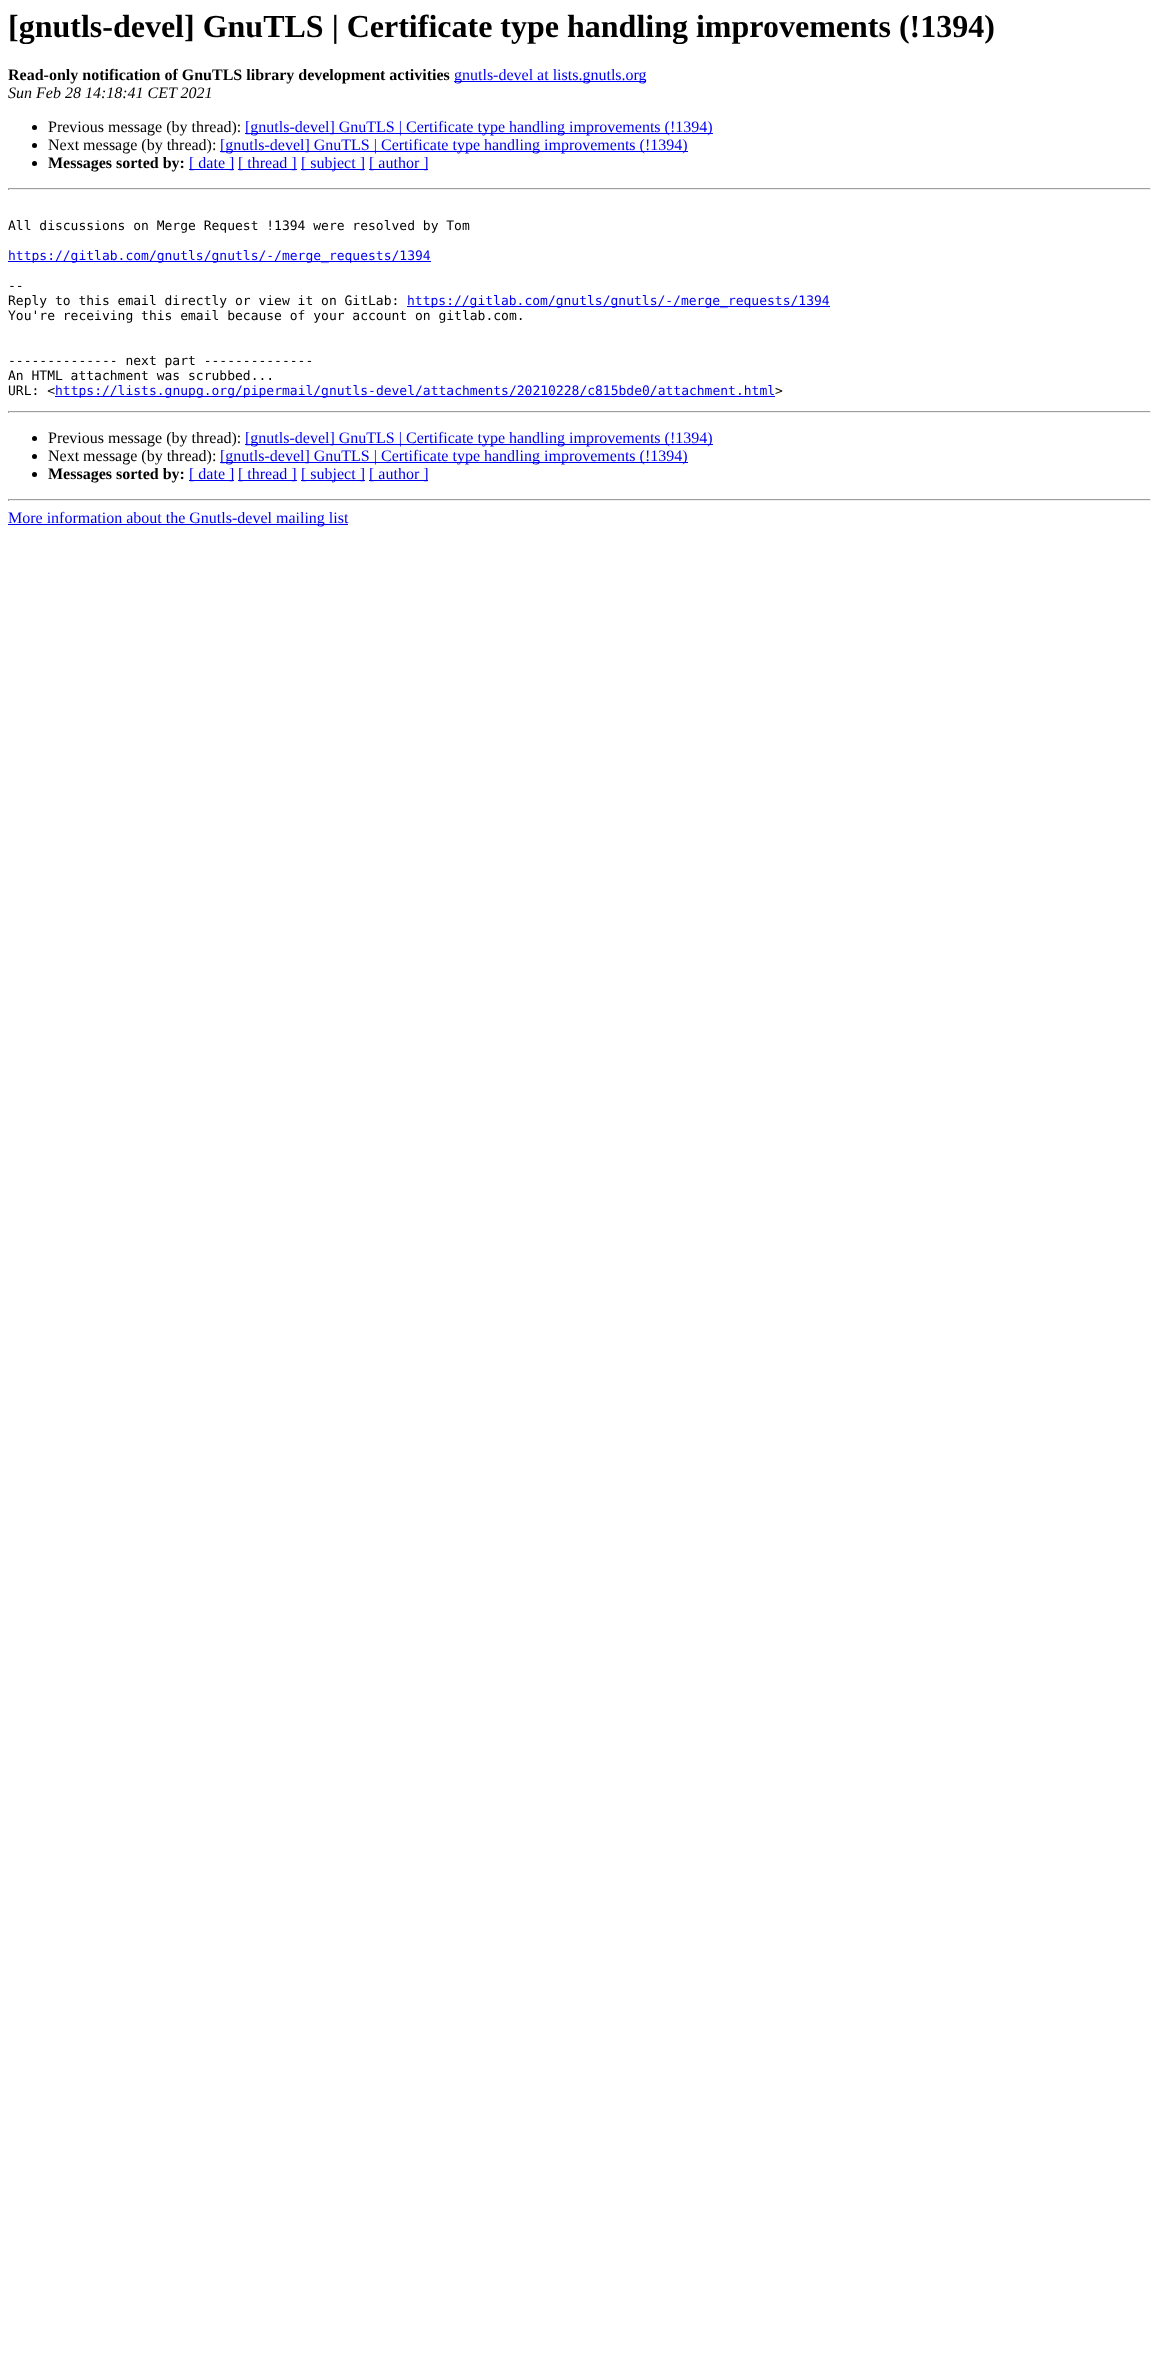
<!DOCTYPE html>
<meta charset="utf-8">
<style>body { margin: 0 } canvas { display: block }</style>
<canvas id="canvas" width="1159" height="2376"></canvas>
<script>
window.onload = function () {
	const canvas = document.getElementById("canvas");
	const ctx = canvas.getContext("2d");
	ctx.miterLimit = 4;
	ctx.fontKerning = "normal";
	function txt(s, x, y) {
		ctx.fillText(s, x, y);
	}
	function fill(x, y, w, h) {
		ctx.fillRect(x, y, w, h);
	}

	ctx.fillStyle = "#FFFFFF";
	fill(0, 0, 1159, 2376);
	ctx.fillStyle = "#0000EE";
	fill(454, 81, 192, 1);
	ctx.fillStyle = "#000000";
	ctx.beginPath();
	ctx.arc(34.5, 127.5, 2.5, 0, Math.PI * 2);
	ctx.fill();
	ctx.fillStyle = "#0000EE";
	fill(245, 133, 468, 1);
	ctx.fillStyle = "#000000";
	ctx.beginPath();
	ctx.arc(34.5, 145.5, 2.5, 0, Math.PI * 2);
	ctx.fill();
	ctx.fillStyle = "#0000EE";
	fill(220, 151, 468, 1);
	ctx.fillStyle = "#000000";
	ctx.beginPath();
	ctx.arc(34.5, 163.5, 2.5, 0, Math.PI * 2);
	ctx.fill();
	ctx.fillStyle = "#0000EE";
	fill(189, 169, 45, 1);
	fill(238, 169, 59, 1);
	fill(301, 169, 64, 1);
	fill(369, 169, 59, 1);
	ctx.fillStyle = "#9F9F9F";
	fill(8, 188, 1143, 1);
	ctx.fillStyle = "#EEEEEE";
	fill(1150, 188, 1, 2);
	fill(8, 189, 1143, 1);
	ctx.fillStyle = "#9F9F9F";
	fill(8, 188, 1, 2);
	ctx.fillStyle = "#0000EE";
	fill(8, 261, 423, 1);
	fill(407, 306, 423, 1);
	fill(55, 396, 720, 1);
	ctx.fillStyle = "#9F9F9F";
	fill(8, 411, 1143, 1);
	ctx.fillStyle = "#EEEEEE";
	fill(1150, 411, 1, 2);
	fill(8, 412, 1143, 1);
	ctx.fillStyle = "#9F9F9F";
	fill(8, 411, 1, 2);
	ctx.fillStyle = "#000000";
	ctx.beginPath();
	ctx.arc(34.5, 438.5, 2.5, 0, Math.PI * 2);
	ctx.fill();
	ctx.fillStyle = "#0000EE";
	fill(245, 444, 468, 1);
	ctx.fillStyle = "#000000";
	ctx.beginPath();
	ctx.arc(34.5, 456.5, 2.5, 0, Math.PI * 2);
	ctx.fill();
	ctx.fillStyle = "#0000EE";
	fill(220, 462, 468, 1);
	ctx.fillStyle = "#000000";
	ctx.beginPath();
	ctx.arc(34.5, 474.5, 2.5, 0, Math.PI * 2);
	ctx.fill();
	ctx.fillStyle = "#0000EE";
	fill(189, 480, 45, 1);
	fill(238, 480, 59, 1);
	fill(301, 480, 64, 1);
	fill(369, 480, 59, 1);
	ctx.fillStyle = "#9F9F9F";
	fill(8, 499, 1143, 1);
	ctx.fillStyle = "#EEEEEE";
	fill(1150, 499, 1, 2);
	fill(8, 500, 1143, 1);
	ctx.fillStyle = "#9F9F9F";
	fill(8, 499, 1, 2);
	ctx.fillStyle = "#0000EE";
	fill(8, 524, 340, 1);
	ctx.font = "bold 32px Liberation Serif";
	ctx.fillStyle = "#000000";
	txt("[gnutls-devel] GnuTLS | Certificate type handling improvements (!1394)", 8, 37);
	ctx.font = "bold 16px Liberation Serif";
	txt("Read-only notification of GnuTLS library development activities", 8, 80);
	ctx.font = "16px Liberation Serif";
	ctx.fillStyle = "#0000EE";
	txt("gnutls-devel at lists.gnutls.org", 454, 80);
	ctx.font = "italic 16px Liberation Serif";
	ctx.fillStyle = "#000000";
	txt("Sun Feb 28 14:18:41 CET 2021", 8, 98);
	ctx.font = "16px Liberation Serif";
	txt("Previous message (by thread):", 48, 132);
	ctx.fillStyle = "#0000EE";
	txt("[gnutls-devel] GnuTLS | Certificate type handling improvements (!1394)", 245, 132);
	ctx.fillStyle = "#000000";
	txt("Next message (by thread):", 48, 150);
	ctx.fillStyle = "#0000EE";
	txt("[gnutls-devel] GnuTLS | Certificate type handling improvements (!1394)", 220, 150);
	ctx.font = "bold 16px Liberation Serif";
	ctx.fillStyle = "#000000";
	txt("Messages sorted by:", 48, 168);
	ctx.font = "16px Liberation Serif";
	ctx.fillStyle = "#0000EE";
	txt("[ date ]", 189, 168);
	txt("[ thread ]", 238, 168);
	txt("[ subject ]", 301, 168);
	txt("[ author ]", 369, 168);
	ctx.font = "13px DejaVu Sans Mono";
	ctx.fillStyle = "#000000";
	txt("All discussions on Merge Request !1394 were resolved by Tom", 8, 230);
	ctx.fillStyle = "#0000EE";
	txt("https://gitlab.com/gnutls/gnutls/-/merge_requests/1394", 8, 260);
	ctx.fillStyle = "#000000";
	txt("--", 8, 290);
	txt("Reply to this email directly or view it on GitLab:", 8, 305);
	ctx.fillStyle = "#0000EE";
	txt("https://gitlab.com/gnutls/gnutls/-/merge_requests/1394", 407, 305);
	ctx.fillStyle = "#000000";
	txt("You're receiving this email because of your account on gitlab.com.", 8, 320);
	txt("-------------- next part --------------", 8, 365);
	txt("An HTML attachment was scrubbed...", 8, 380);
	txt("URL: <", 8, 395);
	ctx.fillStyle = "#0000EE";
	txt("https://lists.gnupg.org/pipermail/gnutls-devel/attachments/20210228/c815bde0/attachment.html", 55, 395);
	ctx.fillStyle = "#000000";
	txt(">", 775, 395);
	ctx.font = "16px Liberation Serif";
	txt("Previous message (by thread):", 48, 443);
	ctx.fillStyle = "#0000EE";
	txt("[gnutls-devel] GnuTLS | Certificate type handling improvements (!1394)", 245, 443);
	ctx.fillStyle = "#000000";
	txt("Next message (by thread):", 48, 461);
	ctx.fillStyle = "#0000EE";
	txt("[gnutls-devel] GnuTLS | Certificate type handling improvements (!1394)", 220, 461);
	ctx.font = "bold 16px Liberation Serif";
	ctx.fillStyle = "#000000";
	txt("Messages sorted by:", 48, 479);
	ctx.font = "16px Liberation Serif";
	ctx.fillStyle = "#0000EE";
	txt("[ date ]", 189, 479);
	txt("[ thread ]", 238, 479);
	txt("[ subject ]", 301, 479);
	txt("[ author ]", 369, 479);
	txt("More information about the Gnutls-devel mailing list", 8, 523);
};
</script>
